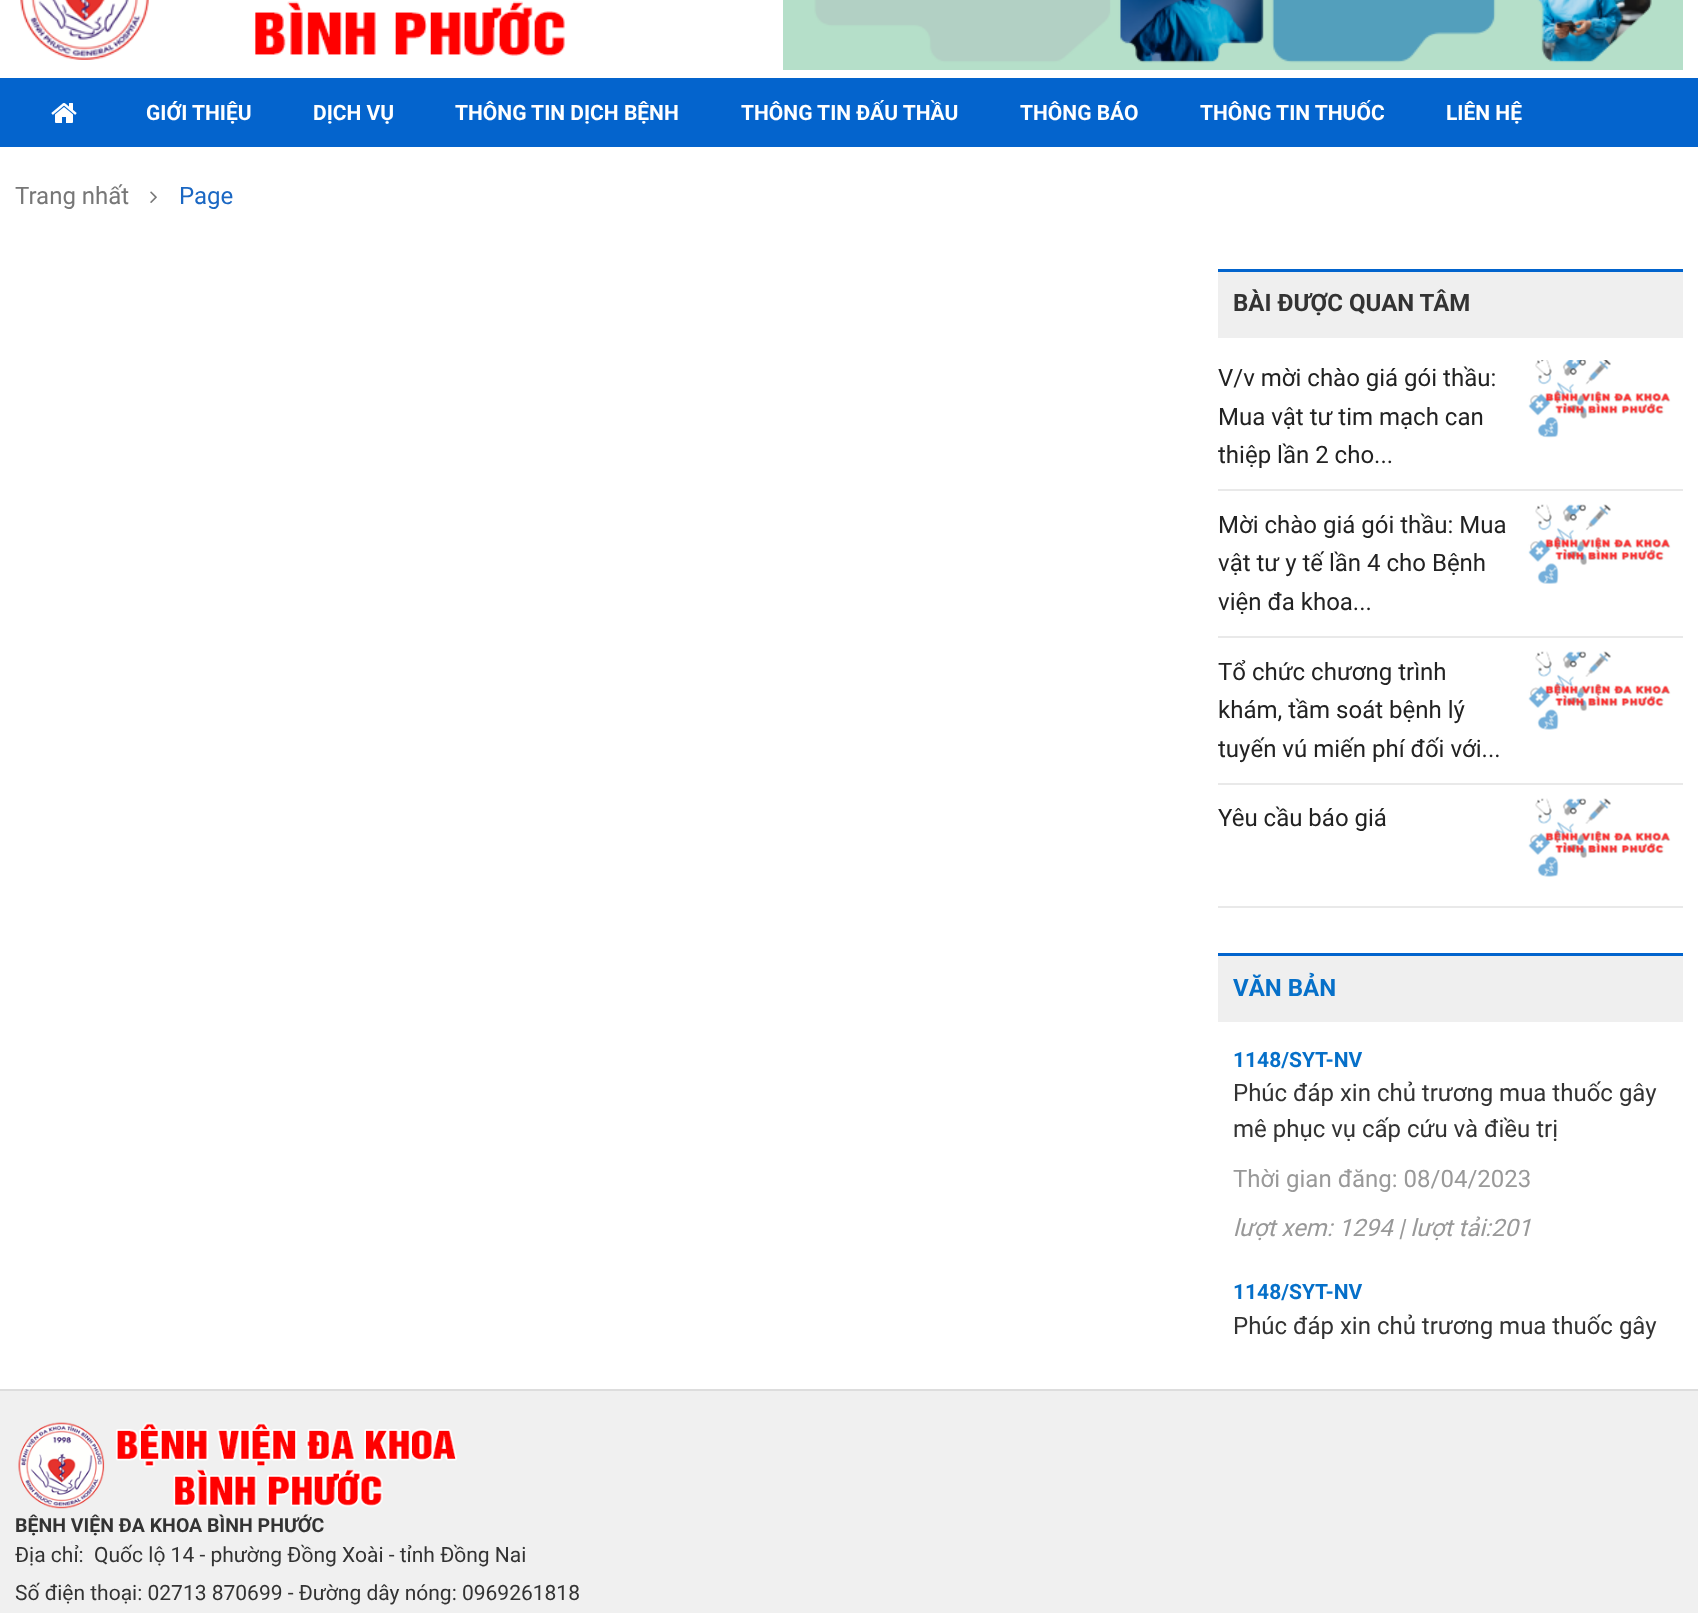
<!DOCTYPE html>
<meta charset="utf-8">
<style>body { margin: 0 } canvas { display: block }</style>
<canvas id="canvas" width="1698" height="1613"></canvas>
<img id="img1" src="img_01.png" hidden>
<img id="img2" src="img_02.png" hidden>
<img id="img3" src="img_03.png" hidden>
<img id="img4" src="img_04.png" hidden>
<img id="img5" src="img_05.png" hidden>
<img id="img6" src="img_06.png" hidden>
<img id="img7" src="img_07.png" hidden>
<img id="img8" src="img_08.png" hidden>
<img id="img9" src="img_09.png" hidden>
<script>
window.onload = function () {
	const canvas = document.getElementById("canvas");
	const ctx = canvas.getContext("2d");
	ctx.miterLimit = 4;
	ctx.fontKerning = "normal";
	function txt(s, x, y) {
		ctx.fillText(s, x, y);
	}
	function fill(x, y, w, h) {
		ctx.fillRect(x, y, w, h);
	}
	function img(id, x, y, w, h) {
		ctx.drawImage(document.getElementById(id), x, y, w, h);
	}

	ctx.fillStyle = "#FFFFFF";
	fill(0, 0, 1698, 1613);
	img("img1", 20, 0, 545, 60);
	img("img2", 783, 0, 900, 70);
	ctx.fillStyle = "#0464CD";
	fill(0, 78, 1698, 69);
	img("img3", 51, 103, 26, 20);
	img("img4", 150, 191, 7, 12);
	ctx.fillStyle = "#EFEFEF";
	fill(1218, 272, 465, 66);
	ctx.fillStyle = "#0264CD";
	fill(1218, 269, 465, 3);
	ctx.fillStyle = "#E9E9E9";
	fill(1218, 489, 465, 2);
	img("img5", 1528, 360, 143, 78);
	fill(1218, 636, 465, 2);
	img("img6", 1528, 504, 143, 80);
	fill(1218, 783, 465, 2);
	img("img7", 1528, 651, 143, 79);
	fill(1218, 906, 465, 2);
	img("img8", 1528, 798, 143, 79);
	ctx.fillStyle = "#EFEFEF";
	fill(1218, 956, 465, 66);
	ctx.fillStyle = "#0264CD";
	fill(1218, 953, 465, 3);
	ctx.fillStyle = "#F0F0F0";
	fill(0, 1391, 1698, 222);
	ctx.fillStyle = "#DDDDDD";
	fill(0, 1389, 1698, 2);
	img("img9", 18, 1422, 439, 87);
	ctx.font = "bold 21px Roboto";
	ctx.fillStyle = "#FFFFFF";
	txt("GIỚI THIỆU", 146, 120);
	txt("DỊCH VỤ", 313, 120);
	txt("THÔNG TIN DỊCH BỆNH", 455, 120);
	txt("THÔNG TIN ĐẤU THẦU", 741, 120);
	txt("THÔNG BÁO", 1020, 120);
	txt("THÔNG TIN THUỐC", 1200, 120);
	txt("LIÊN HỆ", 1446, 120);
	ctx.font = "24px Roboto";
	ctx.fillStyle = "#777777";
	txt("Trang nhất", 15, 204);
	ctx.fillStyle = "#1A67C3";
	txt("Page", 179, 204);
	ctx.font = "bold 24px Roboto";
	ctx.fillStyle = "#333333";
	txt("BÀI ĐƯỢC QUAN TÂM", 1233, 311);
	ctx.font = "24px Roboto";
	ctx.fillStyle = "#222222";
	txt("V/v mời chào giá gói thầu:", 1218, 386);
	txt("Mua vật tư tim mạch can", 1218, 425);
	txt("thiệp lần 2 cho...", 1218, 463);
	txt("Mời chào giá gói thầu: Mua", 1218, 533);
	txt("vật tư y tế lần 4 cho Bệnh", 1218, 571);
	txt("viện đa khoa...", 1218, 610);
	txt("Tổ chức chương trình", 1218, 680);
	txt("khám, tầm soát bệnh lý", 1218, 718);
	txt("tuyến vú miến phí đối với...", 1218, 757);
	txt("Yêu cầu báo giá", 1218, 826);
	ctx.font = "bold 24px Roboto";
	ctx.fillStyle = "#0670C9";
	txt("VĂN BẢN", 1233, 996);
	ctx.font = "bold 21px Roboto";
	txt("1148/SYT-NV", 1233, 1067);
	ctx.font = "24px Roboto";
	ctx.fillStyle = "#333333";
	txt("Phúc đáp xin chủ trương mua thuốc gây", 1233, 1101);
	txt("mê phục vụ cấp cứu và điều trị", 1233, 1137);
	ctx.fillStyle = "#999999";
	txt("Thời gian đăng: 08/04/2023", 1233, 1187);
	ctx.font = "italic 24px Roboto";
	txt("lượt xem: 1294 | lượt tải:201", 1233, 1236);
	ctx.font = "bold 21px Roboto";
	ctx.fillStyle = "#0670C9";
	txt("1148/SYT-NV", 1233, 1299);
	ctx.font = "24px Roboto";
	ctx.fillStyle = "#333333";
	txt("Phúc đáp xin chủ trương mua thuốc gây", 1233, 1334);
	ctx.font = "bold 19.5px Roboto";
	txt("BỆNH VIỆN ĐA KHOA BÌNH PHƯỚC", 15, 1532);
	ctx.font = "21px Roboto";
	txt("Địa chỉ:  Quốc lộ 14 - phường Đồng Xoài - tỉnh Đồng Nai", 15, 1562);
	txt("Số điện thoại: 02713 870699 - Đường dây nóng: 0969261818", 15, 1600);
};
</script>
